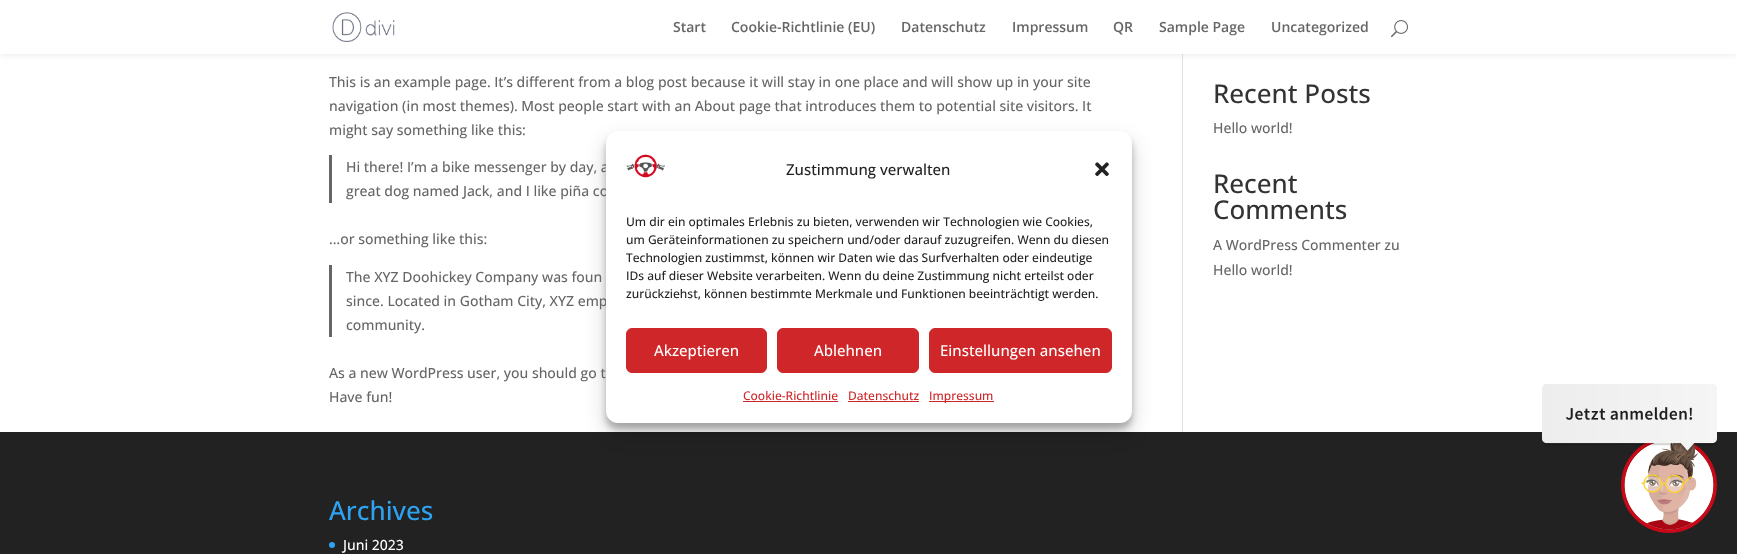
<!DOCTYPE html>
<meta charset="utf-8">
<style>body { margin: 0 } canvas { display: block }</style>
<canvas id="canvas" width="1737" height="554"></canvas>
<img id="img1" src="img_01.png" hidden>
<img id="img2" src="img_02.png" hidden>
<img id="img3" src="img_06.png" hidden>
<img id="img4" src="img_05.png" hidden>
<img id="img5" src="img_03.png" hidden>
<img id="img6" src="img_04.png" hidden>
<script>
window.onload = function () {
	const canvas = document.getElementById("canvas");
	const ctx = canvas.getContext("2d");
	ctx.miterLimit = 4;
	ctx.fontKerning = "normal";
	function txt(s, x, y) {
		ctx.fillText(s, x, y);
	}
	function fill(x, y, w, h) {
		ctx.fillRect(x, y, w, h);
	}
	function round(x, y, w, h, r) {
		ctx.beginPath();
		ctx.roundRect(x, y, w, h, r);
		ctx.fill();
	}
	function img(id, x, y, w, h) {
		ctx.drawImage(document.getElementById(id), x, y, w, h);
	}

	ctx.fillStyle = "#FFFFFF";
	fill(0, 0, 1737, 554);
	ctx.fillStyle = "#E2E2E2";
	fill(1182, 54, 1, 378);
	ctx.fillStyle = "rgba(0, 0, 0, 0.1)";
	ctx.filter = "blur(3.5px)";
	ctx.beginPath();
	ctx.rect(0, 0, 1737, 54);
	ctx.fill();
	ctx.filter = "none";
	ctx.fillStyle = "#FFFFFF";
	fill(0, 0, 1737, 54);
	img("img1", 332, 12, 63, 30);
	img("img2", 1391, 20, 17, 18);
	ctx.fillStyle = "#666666";
	fill(329, 155, 3, 48);
	fill(329, 265, 3, 72);
	ctx.fillStyle = "#222222";
	fill(0, 432, 1737, 122);
	ctx.fillStyle = "#2EA3F2";
	ctx.beginPath();
	ctx.arc(332, 545, 3, 0, Math.PI * 2);
	ctx.fill();
	ctx.fillStyle = "rgba(0, 0, 0, 0.23)";
	ctx.filter = "blur(3px)";
	ctx.beginPath();
	ctx.roundRect(606, 137, 526, 292, 12);
	ctx.fill();
	ctx.filter = "none";
	ctx.fillStyle = "rgba(0, 0, 0, 0.19)";
	ctx.filter = "blur(10px)";
	ctx.beginPath();
	ctx.roundRect(606, 141, 526, 292, 12);
	ctx.fill();
	ctx.filter = "none";
	img("img3", 1621, 443, 96, 90);
	img("img4", 1542, 384, 175, 70);
	ctx.font = "600 14px Open Sans";
	ctx.fillStyle = "#666666";
	txt("Start", 673, 32);
	txt("Cookie-Richtlinie (EU)", 731, 32);
	txt("Datenschutz", 901, 32);
	txt("Impressum", 1012, 32);
	txt("QR", 1113, 32);
	txt("Sample Page", 1159, 32);
	txt("Uncategorized", 1271, 32);
	ctx.font = "500 14px Open Sans";
	txt("This is an example page. It’s different from a blog post because it will stay in one place and will show up in your site", 329, 87);
	txt("navigation (in most themes). Most people start with an About page that introduces them to potential site visitors. It", 329, 111);
	txt("might say something like this:", 329, 135);
	txt("Hi there! I’m a bike messenger by day, a", 346, 172);
	txt("great dog named Jack, and I like piña co", 346, 196);
	txt("…or something like this:", 329, 244);
	txt("The XYZ Doohickey Company was foun", 346, 282);
	txt("since. Located in Gotham City, XYZ emp", 346, 306);
	txt("community.", 346, 330);
	txt("As a new WordPress user, you should go t", 329, 378);
	txt("Have fun!", 329, 402);
	ctx.font = "500 26px Open Sans";
	ctx.fillStyle = "#333333";
	txt("Recent Posts", 1213, 103);
	ctx.font = "500 14px Open Sans";
	ctx.fillStyle = "#666666";
	txt("Hello world!", 1213, 133);
	ctx.font = "500 26px Open Sans";
	ctx.fillStyle = "#333333";
	txt("Recent", 1213, 193);
	txt("Comments", 1213, 219);
	ctx.font = "500 14px Open Sans";
	ctx.fillStyle = "#666666";
	txt("A WordPress Commenter zu", 1213, 250);
	txt("Hello world!", 1213, 275);
	ctx.font = "500 26px Open Sans";
	ctx.fillStyle = "#2EA3F2";
	txt("Archives", 329, 520);
	ctx.font = "500 14px Open Sans";
	ctx.fillStyle = "#FFFFFF";
	txt("Juni 2023", 343, 550);
	round(606, 131, 526, 292, 12);
	img("img5", 626, 154, 39, 24);
	ctx.font = "500 15px Open Sans";
	ctx.fillStyle = "#222222";
	txt("Zustimmung verwalten", 786, 175);
	img("img6", 1095, 162, 14, 15);
	ctx.font = "500 12px Open Sans";
	txt("Um dir ein optimales Erlebnis zu bieten, verwenden wir Technologien wie Cookies,", 626, 226);
	txt("um Geräteinformationen zu speichern und/oder darauf zuzugreifen. Wenn du diesen", 626, 244);
	txt("Technologien zustimmst, können wir Daten wie das Surfverhalten oder eindeutige", 626, 262);
	txt("IDs auf dieser Website verarbeiten. Wenn du deine Zustimmung nicht erteilst oder", 626, 280);
	txt("zurückziehst, können bestimmte Merkmale und Funktionen beeinträchtigt werden.", 626, 298);
	ctx.fillStyle = "#CE2629";
	ctx.beginPath();
	ctx.roundRect(626.5, 328.5, 140, 44, 5.5);
	ctx.fill();
	ctx.strokeStyle = "#CE2629";
	ctx.stroke();
	ctx.font = "500 15px Open Sans";
	ctx.fillStyle = "#FFFFFF";
	txt("Akzeptieren", 654, 356);
	ctx.fillStyle = "#CE2629";
	ctx.beginPath();
	ctx.roundRect(777.5, 328.5, 141, 44, 5.5);
	ctx.fill();
	ctx.stroke();
	ctx.fillStyle = "#FFFFFF";
	txt("Ablehnen", 814, 356);
	ctx.fillStyle = "#CE2629";
	ctx.beginPath();
	ctx.roundRect(929.5, 328.5, 182, 44, 5.5);
	ctx.fill();
	ctx.stroke();
	ctx.fillStyle = "#FFFFFF";
	txt("Einstellungen ansehen", 940, 356);
	ctx.font = "500 12px Open Sans";
	ctx.fillStyle = "#CE2629";
	txt("Cookie-Richtlinie", 743, 400);
	fill(743, 401, 95, 1);
	txt("Datenschutz", 848, 400);
	fill(848, 401, 71, 1);
	fill(929, 401, 65, 1);
	txt("Impressum", 929, 400);
};
</script>
